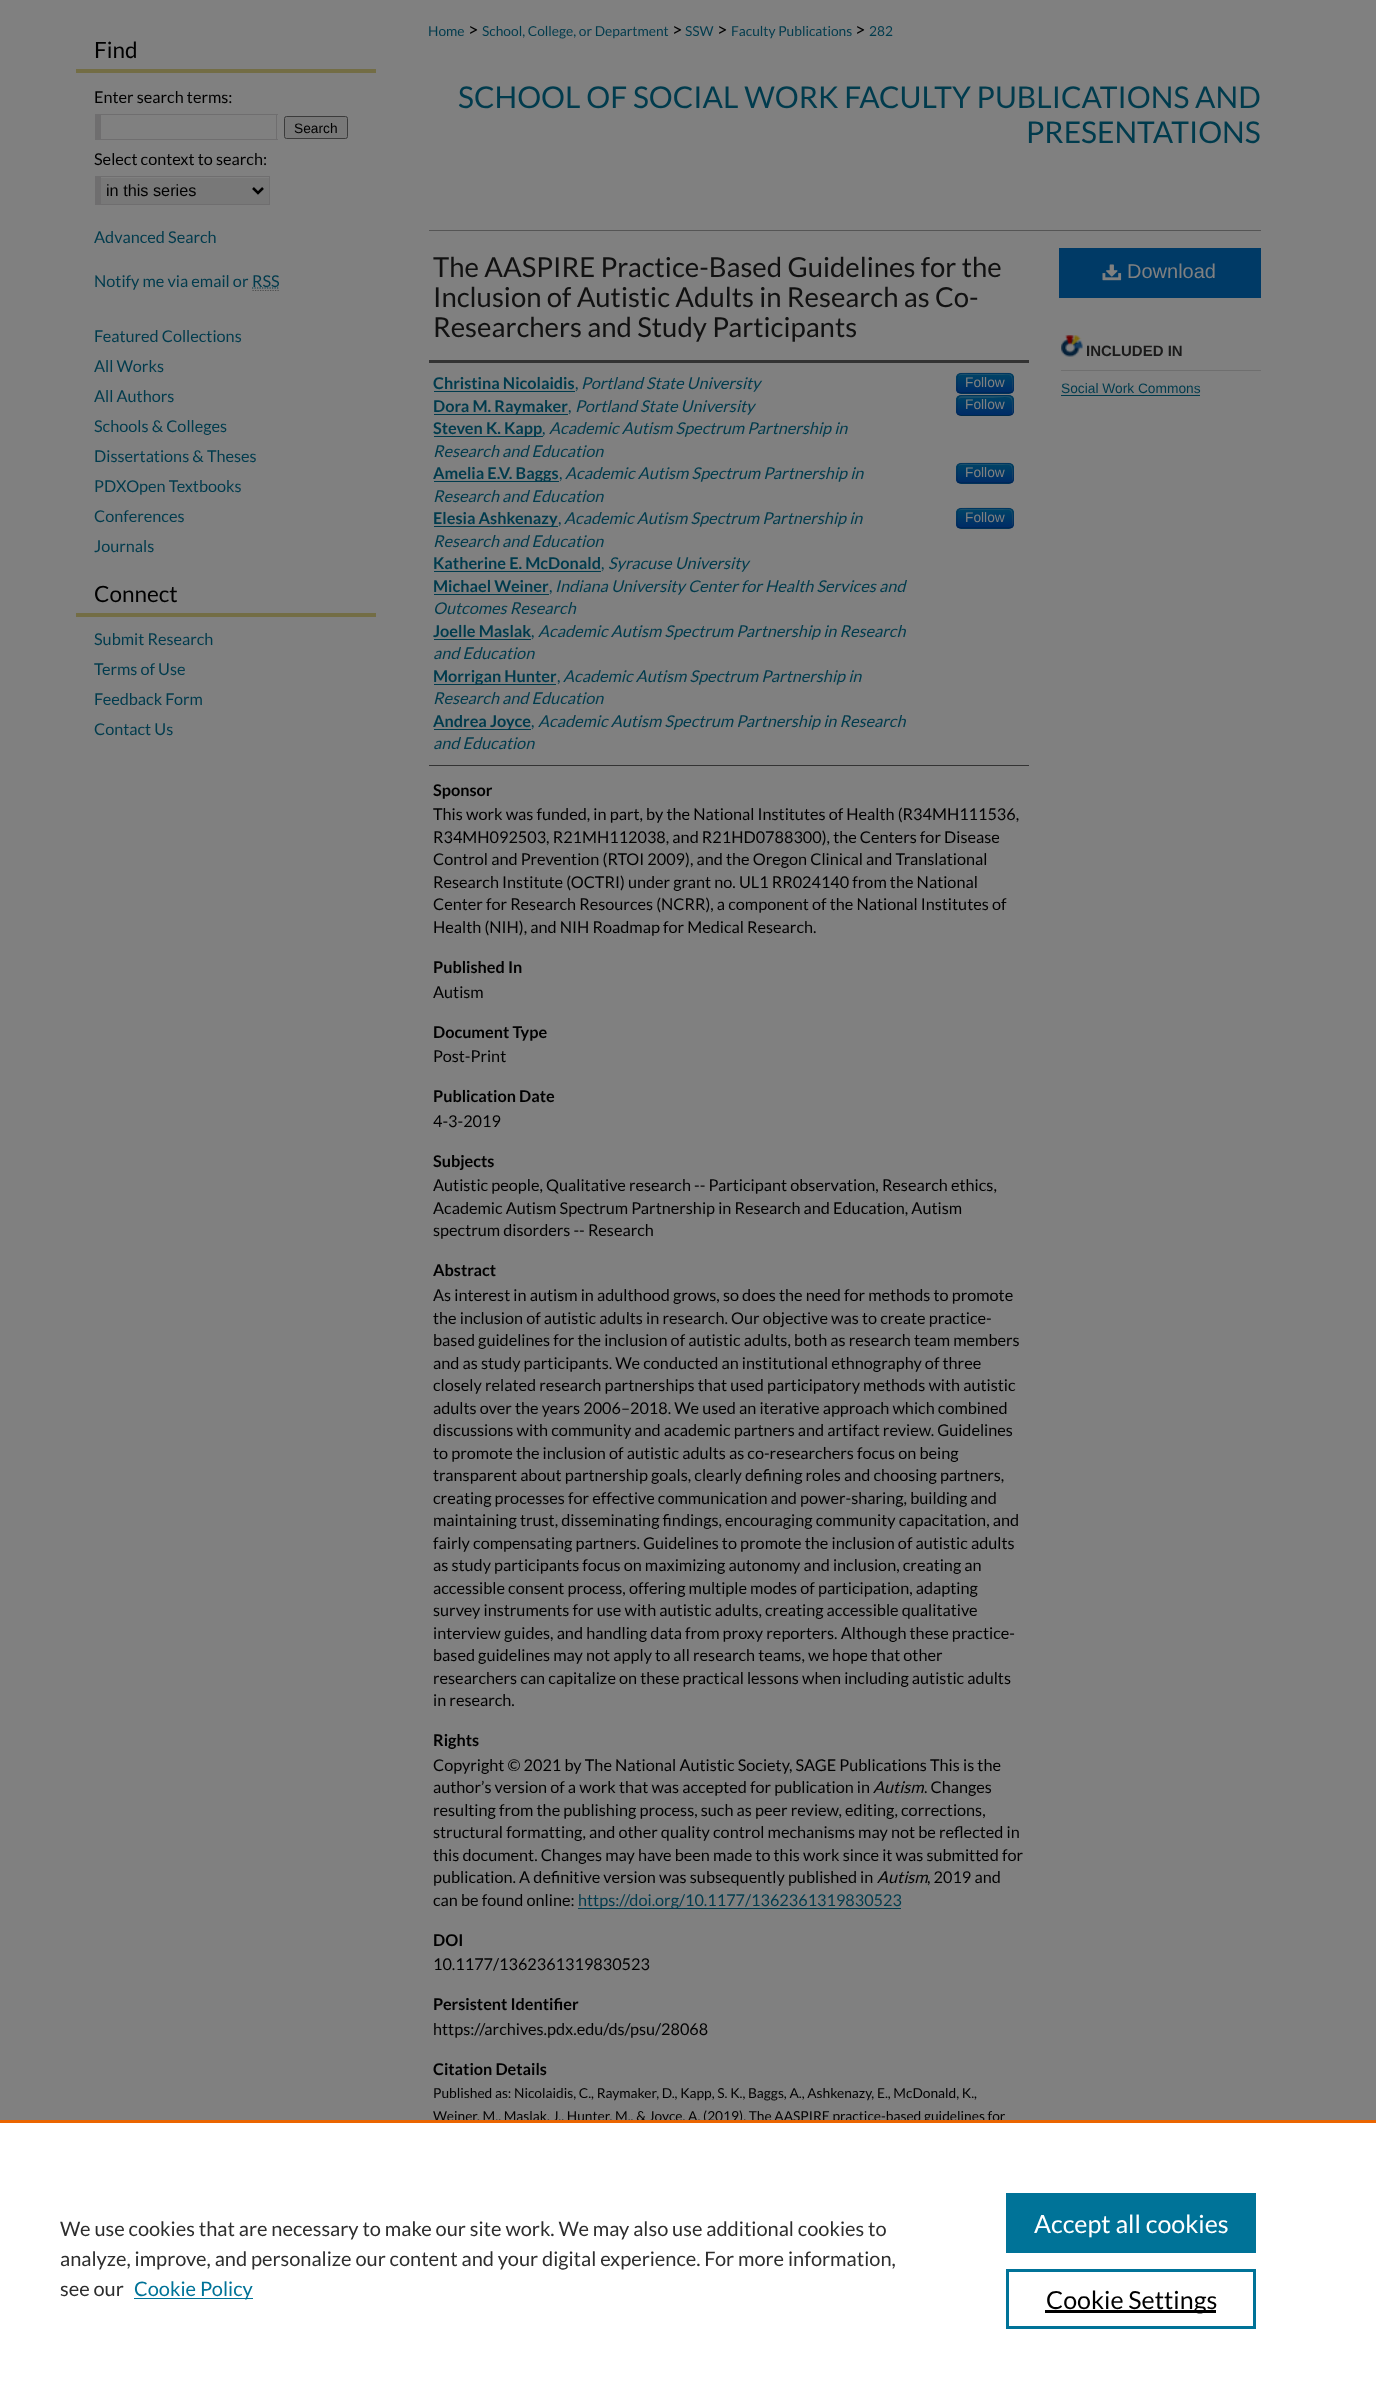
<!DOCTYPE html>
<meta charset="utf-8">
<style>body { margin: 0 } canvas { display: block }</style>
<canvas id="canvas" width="1376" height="2394"></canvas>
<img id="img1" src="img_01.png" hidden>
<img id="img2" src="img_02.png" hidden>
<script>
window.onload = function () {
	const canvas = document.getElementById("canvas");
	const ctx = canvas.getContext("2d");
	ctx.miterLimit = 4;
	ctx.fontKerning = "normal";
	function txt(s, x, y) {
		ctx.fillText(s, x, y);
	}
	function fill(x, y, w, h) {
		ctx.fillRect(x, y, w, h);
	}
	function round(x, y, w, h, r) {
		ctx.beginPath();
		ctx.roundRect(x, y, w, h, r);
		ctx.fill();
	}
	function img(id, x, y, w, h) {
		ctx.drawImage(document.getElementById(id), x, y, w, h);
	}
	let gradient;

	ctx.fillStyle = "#808080";
	fill(0, 0, 1376, 2394);
	ctx.fillStyle = "#736D45";
	fill(76, 69, 300, 4);
	ctx.fillStyle = "#6F6E6F";
	fill(95, 114, 183, 1);
	fill(276, 114, 1, 26);
	fill(95, 139, 183, 1);
	fill(95, 114, 6, 26);
	ctx.fillStyle = "#787878";
	ctx.beginPath();
	ctx.roundRect(284.5, 116.5, 63, 22, 2);
	ctx.fill();
	ctx.strokeStyle = "#3B3B3B";
	ctx.stroke();
	fill(101, 178, 168, 26);
	ctx.fillStyle = "#6F6E6F";
	fill(95, 176, 175, 1);
	fill(269, 176, 1, 29);
	fill(95, 204, 175, 1);
	fill(95, 176, 6, 29);
	ctx.beginPath();
	ctx.moveTo(253, 188);
	ctx.lineTo(258, 193);
	ctx.lineTo(263, 188);
	ctx.strokeStyle = "#000000";
	ctx.lineWidth = 2.5;
	ctx.stroke();
	ctx.beginPath();
	ctx.moveTo(252.5, 290.5);
	ctx.lineTo(280, 290.5);
	ctx.strokeStyle = "#4D4D4D";
	ctx.lineWidth = 1.2;
	ctx.setLineDash([1.25, 1.25]);
	ctx.stroke();
	ctx.beginPath();
	ctx.moveTo(252, 288);
	ctx.lineTo(279.5, 288);
	ctx.strokeStyle = "#003B4D";
	ctx.stroke();
	ctx.fillStyle = "#736D45";
	fill(76, 613, 300, 4);
	ctx.fillStyle = "#555555";
	fill(429, 230, 832, 1);
	ctx.fillStyle = "#333333";
	fill(429, 360, 600, 3);
	fill(429, 765, 600, 1);
	ctx.fillStyle = "#003B4D";
	fill(434, 391, 141, 1);
	ctx.fillStyle = "#003A66";
	round(956, 373, 58, 21, 5);
	ctx.save();
	ctx.beginPath();
	ctx.roundRect(956, 373, 58, 21, 5);
	ctx.clip();
	gradient = ctx.createLinearGradient(985, 374, 985, 393);
	gradient.addColorStop(0, "#004466");
	gradient.addColorStop(1, "#002B66");
	ctx.fillStyle = gradient;
	fill(956, 374, 58, 19);
	ctx.restore();
	ctx.fillStyle = "rgba(128, 128, 128, 0.2)";
	ctx.beginPath();
	ctx.moveTo(961, 375);
	ctx.lineTo(1003, 375);
	ctx.bezierCurveTo(1011, 374, 1012, 375, 1012, 383);
	ctx.bezierCurveTo(1012, 386, 1013, 390, 1011, 392);
	ctx.bezierCurveTo(1014, 390, 1013, 386, 1013, 384);
	ctx.bezierCurveTo(1013, 373, 1012, 374, 1001, 374);
	ctx.lineTo(970, 374);
	ctx.bezierCurveTo(961, 374, 958, 372, 958, 381);
	ctx.bezierCurveTo(958, 378, 958, 375, 961, 375);
	ctx.closePath();
	ctx.moveTo(958, 390);
	ctx.lineTo(958, 387);
	ctx.closePath();
	ctx.fill("evenodd");
	ctx.beginPath();
	ctx.moveTo(1012, 392);
	ctx.bezierCurveTo(1011, 392.5, 1010, 393, 1009, 393);
	ctx.lineTo(961, 393);
	ctx.bezierCurveTo(960, 393, 959, 392.5, 958, 392);
	ctx.strokeStyle = "rgba(0, 0, 0, 0.25)";
	ctx.setLineDash([]);
	ctx.stroke();
	ctx.beginPath();
	ctx.moveTo(958, 392);
	ctx.bezierCurveTo(956, 389.5, 957, 386, 957, 383);
	ctx.bezierCurveTo(957, 372, 957.5, 373, 969, 373);
	ctx.lineTo(1001, 373);
	ctx.bezierCurveTo(1012.5, 373, 1013, 372, 1013, 383);
	ctx.bezierCurveTo(1013, 386, 1014, 389.5, 1012, 392);
	ctx.strokeStyle = "rgba(0, 0, 0, 0.1)";
	ctx.stroke();
	ctx.fillStyle = "#003B4D";
	fill(434, 414, 134, 1);
	ctx.fillStyle = "#003A66";
	round(956, 395, 58, 21, 5);
	ctx.save();
	ctx.beginPath();
	ctx.roundRect(956, 395, 58, 21, 5);
	ctx.clip();
	gradient = ctx.createLinearGradient(985, 396, 985, 415);
	gradient.addColorStop(0, "#004466");
	gradient.addColorStop(1, "#002B66");
	ctx.fillStyle = gradient;
	fill(956, 396, 58, 19);
	ctx.restore();
	ctx.fillStyle = "rgba(128, 128, 128, 0.2)";
	ctx.beginPath();
	ctx.moveTo(961, 398);
	ctx.lineTo(993, 398);
	ctx.lineTo(1005, 397);
	ctx.bezierCurveTo(1012, 397, 1012, 400, 1012, 406);
	ctx.lineTo(1012, 414);
	ctx.bezierCurveTo(1014, 412, 1013, 408, 1013, 406);
	ctx.bezierCurveTo(1013, 395, 1012, 396, 1001, 396);
	ctx.lineTo(970, 396);
	ctx.bezierCurveTo(961, 396, 958, 394, 958, 403);
	ctx.bezierCurveTo(958, 401, 958, 398, 961, 398);
	ctx.closePath();
	ctx.moveTo(958, 412);
	ctx.lineTo(958, 409);
	ctx.closePath();
	ctx.fill("evenodd");
	ctx.beginPath();
	ctx.moveTo(1012, 414.5);
	ctx.bezierCurveTo(1011, 415, 1010, 415.5, 1009, 415.5);
	ctx.lineTo(961, 415.5);
	ctx.bezierCurveTo(960, 415.5, 959, 415, 958, 414.5);
	ctx.strokeStyle = "rgba(0, 0, 0, 0.25)";
	ctx.stroke();
	ctx.beginPath();
	ctx.moveTo(958, 414.5);
	ctx.bezierCurveTo(956, 412, 957, 408.5, 957, 405.5);
	ctx.bezierCurveTo(957, 394.5, 957.5, 395.5, 969, 395.5);
	ctx.lineTo(1001, 395.5);
	ctx.bezierCurveTo(1012.5, 395.5, 1013, 394.5, 1013, 405.5);
	ctx.bezierCurveTo(1013, 408.5, 1014, 412, 1012, 414.5);
	ctx.strokeStyle = "rgba(0, 0, 0, 0.1)";
	ctx.stroke();
	ctx.fillStyle = "#003B4D";
	fill(434, 436, 109, 1);
	fill(434, 481, 125, 1);
	ctx.fillStyle = "#003A66";
	round(956, 463, 58, 21, 5);
	ctx.save();
	ctx.beginPath();
	ctx.roundRect(956, 463, 58, 21, 5);
	ctx.clip();
	gradient = ctx.createLinearGradient(985, 464, 985, 483);
	gradient.addColorStop(0, "#004466");
	gradient.addColorStop(1, "#002B66");
	ctx.fillStyle = gradient;
	fill(956, 464, 58, 19);
	ctx.restore();
	ctx.fillStyle = "rgba(128, 128, 128, 0.2)";
	ctx.beginPath();
	ctx.moveTo(961, 465);
	ctx.lineTo(1003, 465);
	ctx.bezierCurveTo(1011, 464, 1012, 465, 1012, 473);
	ctx.bezierCurveTo(1012, 476, 1013, 480, 1011, 482);
	ctx.bezierCurveTo(1014, 480, 1013, 476, 1013, 474);
	ctx.bezierCurveTo(1013, 463, 1012, 464, 1001, 464);
	ctx.lineTo(970, 464);
	ctx.bezierCurveTo(961, 464, 958, 462, 958, 471);
	ctx.bezierCurveTo(958, 468, 958, 465, 961, 465);
	ctx.closePath();
	ctx.moveTo(958, 480);
	ctx.lineTo(958, 477);
	ctx.closePath();
	ctx.fill("evenodd");
	ctx.beginPath();
	ctx.moveTo(1012, 482);
	ctx.bezierCurveTo(1011, 482.5, 1010, 483, 1009, 483);
	ctx.lineTo(961, 483);
	ctx.bezierCurveTo(960, 483, 959, 482.5, 958, 482);
	ctx.strokeStyle = "rgba(0, 0, 0, 0.25)";
	ctx.stroke();
	ctx.beginPath();
	ctx.moveTo(958, 482);
	ctx.bezierCurveTo(956, 479.5, 957, 476, 957, 473);
	ctx.bezierCurveTo(957, 462, 957.5, 463, 969, 463);
	ctx.lineTo(1001, 463);
	ctx.bezierCurveTo(1012.5, 463, 1013, 462, 1013, 473);
	ctx.bezierCurveTo(1013, 476, 1014, 479.5, 1012, 482);
	ctx.strokeStyle = "rgba(0, 0, 0, 0.1)";
	ctx.stroke();
	ctx.fillStyle = "#003B4D";
	fill(434, 526, 124, 1);
	ctx.fillStyle = "#003A66";
	round(956, 508, 58, 21, 5);
	ctx.save();
	ctx.beginPath();
	ctx.roundRect(956, 508, 58, 21, 5);
	ctx.clip();
	gradient = ctx.createLinearGradient(985, 509, 985, 528);
	gradient.addColorStop(0, "#004466");
	gradient.addColorStop(1, "#002B66");
	ctx.fillStyle = gradient;
	fill(956, 509, 58, 19);
	ctx.restore();
	ctx.fillStyle = "rgba(128, 128, 128, 0.2)";
	ctx.beginPath();
	ctx.moveTo(961, 510);
	ctx.lineTo(1003, 510);
	ctx.bezierCurveTo(1011, 509, 1012, 510, 1012, 518);
	ctx.bezierCurveTo(1012, 521, 1013, 525, 1011, 527);
	ctx.bezierCurveTo(1014, 525, 1013, 521, 1013, 518);
	ctx.bezierCurveTo(1013, 508, 1012, 509, 1001, 509);
	ctx.lineTo(970, 509);
	ctx.bezierCurveTo(961, 509, 958, 507, 958, 516);
	ctx.bezierCurveTo(958, 513, 958, 510, 961, 510);
	ctx.closePath();
	ctx.moveTo(958, 525);
	ctx.lineTo(958, 522);
	ctx.closePath();
	ctx.fill("evenodd");
	ctx.beginPath();
	ctx.moveTo(1012, 527);
	ctx.bezierCurveTo(1011, 527.5, 1010, 528, 1009, 528);
	ctx.lineTo(961, 528);
	ctx.bezierCurveTo(960, 528, 959, 527.5, 958, 527);
	ctx.strokeStyle = "rgba(0, 0, 0, 0.25)";
	ctx.stroke();
	ctx.beginPath();
	ctx.moveTo(958, 527);
	ctx.bezierCurveTo(956, 524.5, 957, 521, 957, 518);
	ctx.bezierCurveTo(957, 507, 957.5, 508, 969, 508);
	ctx.lineTo(1001, 508);
	ctx.bezierCurveTo(1012.5, 508, 1013, 507, 1013, 518);
	ctx.bezierCurveTo(1013, 521, 1014, 524.5, 1012, 527);
	ctx.strokeStyle = "rgba(0, 0, 0, 0.1)";
	ctx.stroke();
	ctx.fillStyle = "#003B4D";
	fill(434, 571, 167, 1);
	fill(434, 594, 115, 1);
	fill(434, 639, 97, 1);
	fill(434, 684, 122, 1);
	fill(434, 729, 97, 1);
	fill(578, 1908, 323, 1);
	ctx.fillStyle = "#003A66";
	fill(1059, 248, 202, 50);
	img("img1", 1102, 264, 20, 17);
	img("img2", 1061, 335, 22, 22);
	ctx.fillStyle = "#6F6F6F";
	fill(1061, 370, 200, 1);
	ctx.fillStyle = "#003B4D";
	fill(1061, 395, 139, 1);
	ctx.font = "22.5px Lato";
	ctx.fillStyle = "#000000";
	txt("Find", 94, 58);
	ctx.font = "16.25px Lato";
	txt("Enter search terms:", 94, 103);
	ctx.font = "13.75px Liberation Sans";
	txt("Search", 294, 133);
	ctx.font = "16.25px Lato";
	txt("Select context to search:", 94, 165);
	ctx.font = "16.25px Liberation Sans";
	txt("in this series", 106, 196);
	ctx.font = "16.25px Lato";
	ctx.fillStyle = "#003B4D";
	txt("Advanced Search", 94, 243);
	txt("Notify me via email or", 94, 287);
	txt("RSS", 252, 287);
	txt("Featured Collections", 94, 342);
	txt("All Works", 94, 372);
	txt("All Authors", 94, 402);
	txt("Schools & Colleges", 94, 432);
	txt("Dissertations & Theses", 94, 462);
	txt("PDXOpen Textbooks", 94, 492);
	txt("Conferences", 94, 522);
	txt("Journals", 94, 552);
	ctx.font = "22.5px Lato";
	ctx.fillStyle = "#000000";
	txt("Connect", 94, 602);
	ctx.font = "16.25px Lato";
	ctx.fillStyle = "#003B4D";
	txt("Submit Research", 94, 645);
	txt("Terms of Use", 94, 675);
	txt("Feedback Form", 94, 705);
	txt("Contact Us", 94, 735);
	ctx.font = "13.75px Lato";
	txt("Home", 428, 36);
	ctx.font = "18px Lato";
	ctx.fillStyle = "#000000";
	txt(">", 468, 36);
	ctx.font = "13.75px Lato";
	ctx.fillStyle = "#003B4D";
	txt("School, College, or Department", 482, 36);
	ctx.font = "18px Lato";
	ctx.fillStyle = "#000000";
	txt(">", 672, 36);
	ctx.font = "13.75px Lato";
	ctx.fillStyle = "#003B4D";
	txt("SSW", 685, 36);
	ctx.font = "18px Lato";
	ctx.fillStyle = "#000000";
	txt(">", 717, 36);
	ctx.font = "13.75px Lato";
	ctx.fillStyle = "#003B4D";
	txt("Faculty Publications", 731, 36);
	ctx.font = "18px Lato";
	ctx.fillStyle = "#000000";
	txt(">", 855, 36);
	ctx.font = "13.75px Lato";
	ctx.fillStyle = "#003B4D";
	txt("282", 869, 36);
	ctx.font = "30px Lato";
	txt("SCHOOL OF SOCIAL WORK FACULTY PUBLICATIONS AND", 458, 108);
	txt("PRESENTATIONS", 1026, 143);
	ctx.font = "27.5px Lato";
	ctx.fillStyle = "#111111";
	txt("The AASPIRE Practice-Based Guidelines for the", 433, 277);
	txt("Inclusion of Autistic Adults in Research as Co-", 433, 307);
	txt("Researchers and Study Participants", 433, 337);
	ctx.font = "bold 16.25px Lato";
	ctx.fillStyle = "#003B4D";
	txt("Christina Nicolaidis", 433, 389);
	ctx.font = "16.25px Lato";
	txt(",", 575, 389);
	ctx.font = "italic 16.25px Lato";
	txt("Portland State University", 581, 389);
	ctx.font = "13.75px Liberation Sans";
	ctx.fillStyle = "#808080";
	txt("Follow", 965, 387);
	ctx.font = "bold 16.25px Lato";
	ctx.fillStyle = "#003B4D";
	txt("Dora M. Raymaker", 433, 412);
	ctx.font = "16.25px Lato";
	txt(",", 568, 412);
	ctx.font = "italic 16.25px Lato";
	txt("Portland State University", 575, 412);
	ctx.font = "13.75px Liberation Sans";
	ctx.fillStyle = "#808080";
	txt("Follow", 965, 409);
	ctx.font = "bold 16.25px Lato";
	ctx.fillStyle = "#003B4D";
	txt("Steven K. Kapp", 433, 434);
	ctx.font = "16.25px Lato";
	txt(",", 542, 434);
	ctx.font = "italic 16.25px Lato";
	txt("Academic Autism Spectrum Partnership in", 549, 434);
	txt("Research and Education", 433, 457);
	ctx.font = "bold 16.25px Lato";
	txt("Amelia E.V. Baggs", 433, 479);
	ctx.font = "16.25px Lato";
	txt(",", 559, 479);
	ctx.font = "italic 16.25px Lato";
	txt("Academic Autism Spectrum Partnership in", 565, 479);
	txt("Research and Education", 433, 502);
	ctx.font = "13.75px Liberation Sans";
	ctx.fillStyle = "#808080";
	txt("Follow", 965, 477);
	ctx.font = "bold 16.25px Lato";
	ctx.fillStyle = "#003B4D";
	txt("Elesia Ashkenazy", 433, 524);
	ctx.font = "16.25px Lato";
	txt(",", 558, 524);
	ctx.font = "italic 16.25px Lato";
	txt("Academic Autism Spectrum Partnership in", 564, 524);
	txt("Research and Education", 433, 547);
	ctx.font = "13.75px Liberation Sans";
	ctx.fillStyle = "#808080";
	txt("Follow", 965, 522);
	ctx.font = "bold 16.25px Lato";
	ctx.fillStyle = "#003B4D";
	txt("Katherine E. McDonald", 433, 569);
	ctx.font = "16.25px Lato";
	txt(",", 601, 569);
	ctx.font = "italic 16.25px Lato";
	txt("Syracuse University", 608, 569);
	ctx.font = "bold 16.25px Lato";
	txt("Michael Weiner", 433, 592);
	ctx.font = "16.25px Lato";
	txt(",", 549, 592);
	ctx.font = "italic 16.25px Lato";
	txt("Indiana University Center for Health Services and", 555, 592);
	txt("Outcomes Research", 433, 614);
	ctx.font = "bold 16.25px Lato";
	txt("Joelle Maslak", 433, 637);
	ctx.font = "16.25px Lato";
	txt(",", 531, 637);
	ctx.font = "italic 16.25px Lato";
	txt("Academic Autism Spectrum Partnership in Research", 538, 637);
	txt("and Education", 433, 659);
	ctx.font = "bold 16.25px Lato";
	txt("Morrigan Hunter", 433, 682);
	ctx.font = "16.25px Lato";
	txt(",", 557, 682);
	ctx.font = "italic 16.25px Lato";
	txt("Academic Autism Spectrum Partnership in", 563, 682);
	txt("Research and Education", 433, 704);
	ctx.font = "bold 16.25px Lato";
	txt("Andrea Joyce", 433, 727);
	ctx.font = "16.25px Lato";
	txt(",", 531, 727);
	ctx.font = "italic 16.25px Lato";
	txt("Academic Autism Spectrum Partnership in Research", 538, 727);
	txt("and Education", 433, 749);
	ctx.font = "bold 16.25px Lato";
	ctx.fillStyle = "#000000";
	txt("Sponsor", 433, 796);
	ctx.font = "16.25px Lato";
	txt("This work was funded, in part, by the National Institutes of Health (R34MH111536,", 433, 820);
	txt("R34MH092503, R21MH112038, and R21HD0788300), the Centers for Disease", 433, 843);
	txt("Control and Prevention (RTOI 2009), and the Oregon Clinical and Translational", 433, 865);
	txt("Research Institute (OCTRI) under grant no. UL1 RR024140 from the National", 433, 888);
	txt("Center for Research Resources (NCRR), a component of the National Institutes of", 433, 910);
	txt("Health (NIH), and NIH Roadmap for Medical Research.", 433, 933);
	ctx.font = "bold 16.25px Lato";
	txt("Published In", 433, 973);
	ctx.font = "16.25px Lato";
	txt("Autism", 433, 998);
	ctx.font = "bold 16.25px Lato";
	txt("Document Type", 433, 1038);
	ctx.font = "16.25px Lato";
	txt("Post-Print", 433, 1062);
	ctx.font = "bold 16.25px Lato";
	txt("Publication Date", 433, 1102);
	ctx.font = "16.25px Lato";
	txt("4-3-2019", 433, 1127);
	ctx.font = "bold 16.25px Lato";
	txt("Subjects", 433, 1167);
	ctx.font = "16.25px Lato";
	txt("Autistic people, Qualitative research -- Participant observation, Research ethics,", 433, 1191);
	txt("Academic Autism Spectrum Partnership in Research and Education, Autism", 433, 1214);
	txt("spectrum disorders -- Research", 433, 1236);
	ctx.font = "bold 16.25px Lato";
	txt("Abstract", 433, 1276);
	ctx.font = "16.25px Lato";
	txt("As interest in autism in adulthood grows, so does the need for methods to promote", 433, 1301);
	txt("the inclusion of autistic adults in research. Our objective was to create practice-", 433, 1324);
	txt("based guidelines for the inclusion of autistic adults, both as research team members", 433, 1346);
	txt("and as study participants. We conducted an institutional ethnography of three", 433, 1369);
	txt("closely related research partnerships that used participatory methods with autistic", 433, 1391);
	txt("adults over the years 2006–2018. We used an iterative approach which combined", 433, 1414);
	txt("discussions with community and academic partners and artifact review. Guidelines", 433, 1436);
	txt("to promote the inclusion of autistic adults as co-researchers focus on being", 433, 1459);
	txt("transparent about partnership goals, clearly defining roles and choosing partners,", 433, 1481);
	txt("creating processes for effective communication and power-sharing, building and", 433, 1504);
	txt("maintaining trust, disseminating findings, encouraging community capacitation, and", 433, 1526);
	txt("fairly compensating partners. Guidelines to promote the inclusion of autistic adults", 433, 1549);
	txt("as study participants focus on maximizing autonomy and inclusion, creating an", 433, 1571);
	txt("accessible consent process, offering multiple modes of participation, adapting", 433, 1594);
	txt("survey instruments for use with autistic adults, creating accessible qualitative", 433, 1616);
	txt("interview guides, and handling data from proxy reporters. Although these practice-", 433, 1639);
	txt("based guidelines may not apply to all research teams, we hope that other", 433, 1661);
	txt("researchers can capitalize on these practical lessons when including autistic adults", 433, 1684);
	txt("in research.", 433, 1706);
	ctx.font = "bold 16.25px Lato";
	txt("Rights", 433, 1746);
	ctx.font = "16.25px Lato";
	txt("Copyright © 2021 by The National Autistic Society, SAGE Publications This is the", 433, 1771);
	txt("author’s version of a work that was accepted for publication in", 433, 1793);
	ctx.font = "italic 16.25px Lato";
	txt("Autism", 873, 1793);
	ctx.font = "16.25px Lato";
	txt(". Changes", 924, 1793);
	txt("resulting from the publishing process, such as peer review, editing, corrections,", 433, 1816);
	txt("structural formatting, and other quality control mechanisms may not be reflected in", 433, 1838);
	txt("this document. Changes may have been made to this work since it was submitted for", 433, 1861);
	txt("publication. A definitive version was subsequently published in", 433, 1883);
	ctx.font = "italic 16.25px Lato";
	txt("Autism", 877, 1883);
	ctx.font = "16.25px Lato";
	txt(", 2019 and", 927, 1883);
	txt("can be found online:", 433, 1906);
	ctx.fillStyle = "#003B4D";
	txt("https://doi.org/10.1177/1362361319830523", 578, 1906);
	ctx.font = "bold 16.25px Lato";
	ctx.fillStyle = "#000000";
	txt("DOI", 433, 1946);
	ctx.font = "16.25px Lato";
	txt("10.1177/1362361319830523", 433, 1970);
	ctx.font = "bold 16.25px Lato";
	txt("Persistent Identifier", 433, 2010);
	ctx.font = "16.25px Lato";
	txt("https://archives.pdx.edu/ds/psu/28068", 433, 2035);
	ctx.font = "bold 16.25px Lato";
	txt("Citation Details", 433, 2075);
	ctx.font = "13.75px Lato";
	txt("Published as: Nicolaidis, C., Raymaker, D., Kapp, S. K., Baggs, A., Ashkenazy, E., McDonald, K.,", 433, 2098);
	txt("Weiner, M., Maslak, J., Hunter, M., & Joyce, A. (2019). The AASPIRE practice-based guidelines for", 433, 2121);
	ctx.font = "20px Liberation Sans";
	ctx.fillStyle = "#808080";
	txt("Download", 1127, 278);
	ctx.font = "bold 15px Liberation Sans";
	ctx.fillStyle = "#1A1A1A";
	txt("INCLUDED IN", 1086, 356);
	ctx.font = "13.75px Liberation Sans";
	ctx.fillStyle = "#003B4D";
	txt("Social Work Commons", 1061, 393);
	ctx.fillStyle = "#FFFFFF";
	fill(0, 2123, 1376, 271);
	ctx.fillStyle = "#EB6500";
	fill(0, 2120, 1376, 3);
	ctx.font = "20px Lato";
	ctx.fillStyle = "#2E2E2E";
	txt("We use cookies that are necessary to make our site work. We may also use additional cookies to", 60, 2236);
	txt("analyze, improve, and personalize our content and your digital experience. For more information,", 60, 2266);
	txt("see our", 60, 2296);
	ctx.fillStyle = "#007398";
	fill(134, 2298, 119, 1);
	txt("Cookie Policy", 134, 2296);
	fill(1006, 2193, 250, 60);
	ctx.font = "25px Lato";
	ctx.fillStyle = "#FFFFFF";
	txt("Accept all cookies", 1034, 2233);
	ctx.strokeStyle = "#007398";
	ctx.lineWidth = 3;
	ctx.strokeRect(1007.5, 2270.5, 247, 57);
	ctx.fillStyle = "#000000";
	fill(1045, 2310, 171, 3);
	txt("Cookie Settings", 1046, 2309);
};
</script>
